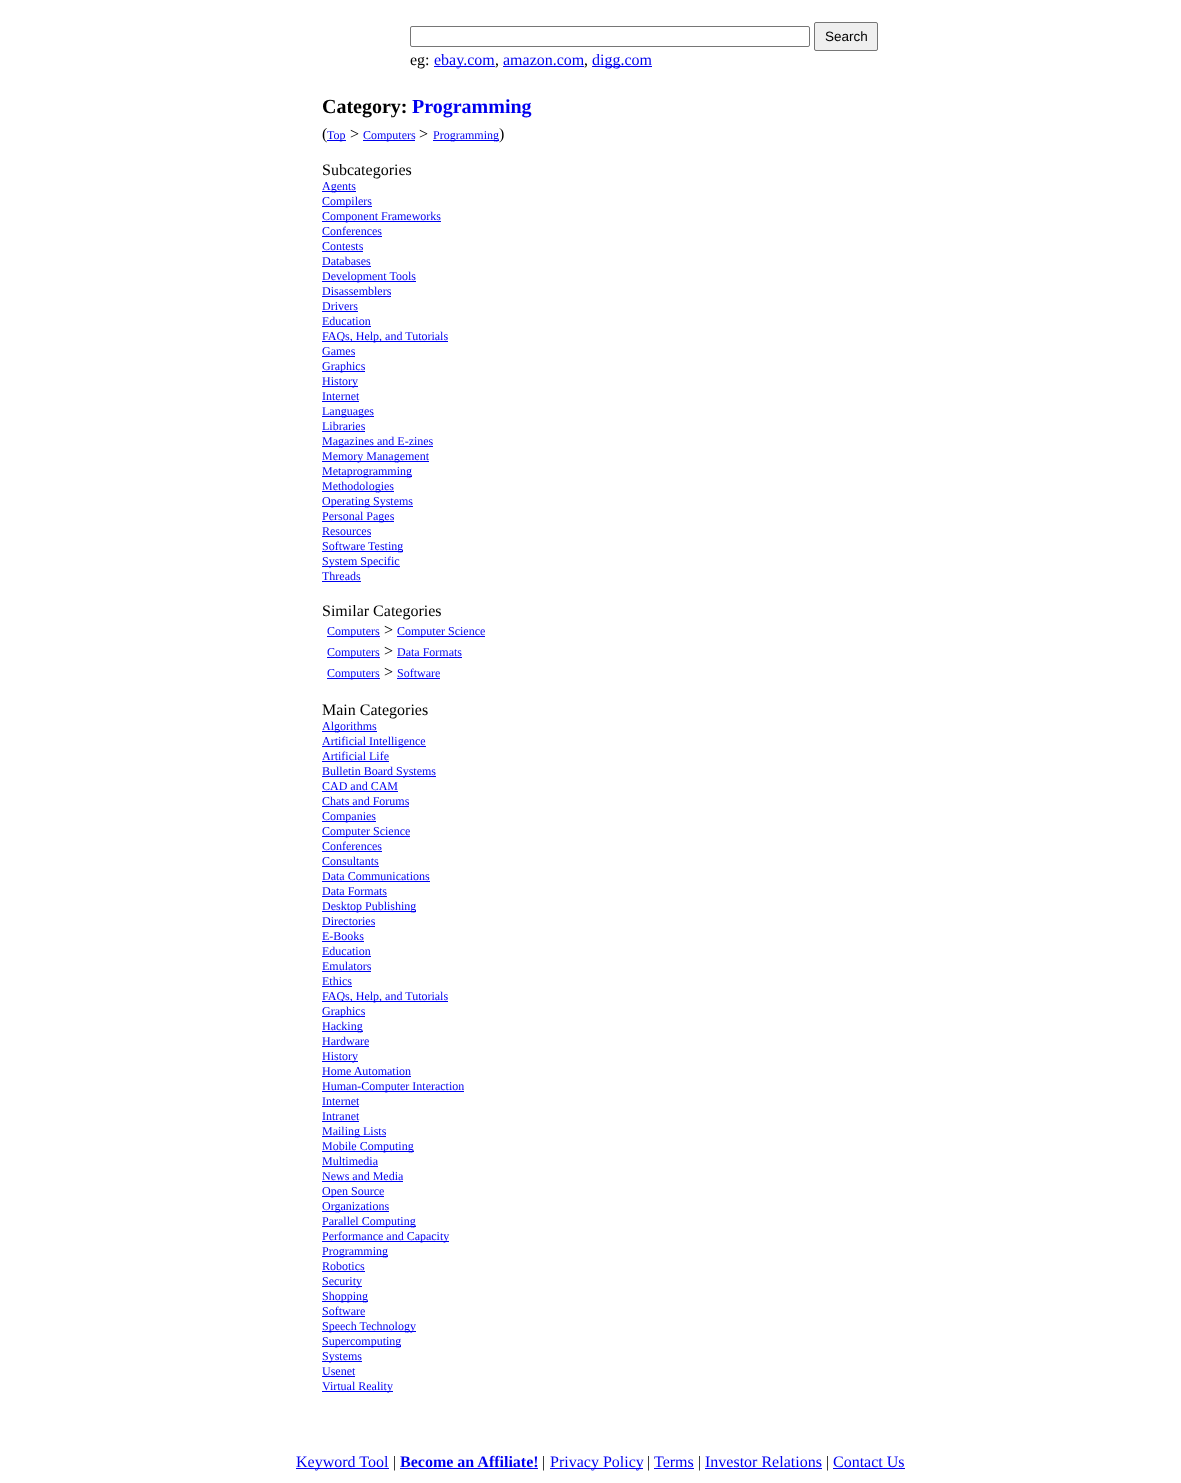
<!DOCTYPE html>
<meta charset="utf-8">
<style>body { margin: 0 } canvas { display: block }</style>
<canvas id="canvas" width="1181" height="1483"></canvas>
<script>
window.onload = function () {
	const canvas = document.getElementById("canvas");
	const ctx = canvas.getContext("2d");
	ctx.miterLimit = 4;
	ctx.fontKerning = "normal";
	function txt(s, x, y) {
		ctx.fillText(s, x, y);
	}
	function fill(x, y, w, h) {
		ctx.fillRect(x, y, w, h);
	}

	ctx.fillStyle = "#FFFFFF";
	fill(0, 0, 1181, 1483);
	ctx.beginPath();
	ctx.roundRect(410.5, 26.5, 399, 20, 1.5);
	ctx.strokeStyle = "#767676";
	ctx.stroke();
	ctx.fillStyle = "#EFEFEF";
	ctx.beginPath();
	ctx.roundRect(814.5, 22.5, 63, 28, 1.5);
	ctx.fill();
	ctx.stroke();
	ctx.fillStyle = "#0000EE";
	fill(434, 66, 61, 1);
	fill(503, 66, 81, 1);
	fill(592, 66, 60, 1);
	fill(327, 140, 19, 1);
	fill(363, 140, 52, 1);
	fill(433, 140, 66, 1);
	fill(322, 191, 34, 1);
	fill(322, 206, 50, 1);
	fill(322, 221, 119, 1);
	fill(322, 236, 60, 1);
	fill(322, 251, 41, 1);
	fill(322, 266, 49, 1);
	fill(322, 281, 94, 1);
	fill(322, 296, 69, 1);
	fill(322, 311, 36, 1);
	fill(322, 326, 49, 1);
	fill(322, 341, 126, 1);
	fill(322, 356, 33, 1);
	fill(322, 371, 43, 1);
	fill(322, 386, 36, 1);
	fill(322, 401, 37, 1);
	fill(322, 416, 52, 1);
	fill(322, 431, 43, 1);
	fill(322, 446, 111, 1);
	fill(322, 461, 107, 1);
	fill(322, 476, 90, 1);
	fill(322, 491, 72, 1);
	fill(322, 506, 91, 1);
	fill(322, 521, 72, 1);
	fill(322, 536, 49, 1);
	fill(322, 551, 81, 1);
	fill(322, 566, 78, 1);
	fill(322, 581, 39, 1);
	fill(327, 636, 53, 1);
	fill(397, 636, 88, 1);
	fill(327, 657, 53, 1);
	fill(397, 657, 65, 1);
	fill(327, 678, 53, 1);
	fill(397, 678, 43, 1);
	fill(322, 731, 55, 1);
	fill(322, 746, 104, 1);
	fill(322, 761, 67, 1);
	fill(322, 776, 114, 1);
	fill(322, 791, 76, 1);
	fill(322, 806, 87, 1);
	fill(322, 821, 54, 1);
	fill(322, 836, 88, 1);
	fill(322, 851, 60, 1);
	fill(322, 866, 57, 1);
	fill(322, 881, 108, 1);
	fill(322, 896, 65, 1);
	fill(322, 911, 94, 1);
	fill(322, 926, 53, 1);
	fill(322, 941, 42, 1);
	fill(322, 956, 49, 1);
	fill(322, 971, 49, 1);
	fill(322, 986, 30, 1);
	fill(322, 1001, 126, 1);
	fill(322, 1016, 43, 1);
	fill(322, 1031, 41, 1);
	fill(322, 1046, 47, 1);
	fill(322, 1061, 36, 1);
	fill(322, 1076, 89, 1);
	fill(322, 1091, 142, 1);
	fill(322, 1106, 37, 1);
	fill(322, 1121, 37, 1);
	fill(322, 1136, 64, 1);
	fill(322, 1151, 92, 1);
	fill(322, 1166, 56, 1);
	fill(322, 1181, 81, 1);
	fill(322, 1196, 62, 1);
	fill(322, 1211, 67, 1);
	fill(322, 1226, 94, 1);
	fill(322, 1241, 127, 1);
	fill(322, 1256, 66, 1);
	fill(322, 1271, 43, 1);
	fill(322, 1286, 40, 1);
	fill(322, 1301, 46, 1);
	fill(322, 1316, 43, 1);
	fill(322, 1331, 94, 1);
	fill(322, 1346, 79, 1);
	fill(322, 1361, 40, 1);
	fill(322, 1376, 33, 1);
	fill(322, 1391, 71, 1);
	fill(296, 1468, 93, 1);
	fill(400, 1468, 138, 1);
	fill(550, 1468, 93, 1);
	fill(654, 1468, 40, 1);
	fill(705, 1468, 117, 1);
	fill(833, 1468, 72, 1);
	ctx.font = "13.5px Liberation Sans";
	ctx.fillStyle = "#000000";
	txt("Search", 825, 41);
	ctx.font = "16px Liberation Serif";
	txt("eg:", 410, 65);
	ctx.fillStyle = "#0000EE";
	txt("ebay.com", 434, 65);
	ctx.fillStyle = "#000000";
	txt(",", 495, 65);
	ctx.fillStyle = "#0000EE";
	txt("amazon.com", 503, 65);
	ctx.fillStyle = "#000000";
	txt(",", 584, 65);
	ctx.fillStyle = "#0000EE";
	txt("digg.com", 592, 65);
	ctx.font = "bold 20px Liberation Serif";
	ctx.fillStyle = "#000000";
	txt("Category:", 322, 113);
	ctx.fillStyle = "#0000EE";
	txt("Programming", 412, 113);
	ctx.font = "16px Liberation Serif";
	ctx.fillStyle = "#000000";
	txt("(", 322, 139);
	ctx.font = "12px Liberation Serif";
	ctx.fillStyle = "#0000EE";
	txt("Top", 327, 139);
	ctx.font = "16px Liberation Serif";
	ctx.fillStyle = "#000000";
	txt(">", 350, 139);
	ctx.font = "12px Liberation Serif";
	ctx.fillStyle = "#0000EE";
	txt("Computers", 363, 139);
	ctx.font = "16px Liberation Serif";
	ctx.fillStyle = "#000000";
	txt(">", 419, 139);
	ctx.font = "12px Liberation Serif";
	ctx.fillStyle = "#0000EE";
	txt("Programming", 433, 139);
	ctx.font = "16px Liberation Serif";
	ctx.fillStyle = "#000000";
	txt(")", 499, 139);
	txt("Subcategories", 322, 175);
	ctx.font = "12px Liberation Serif";
	ctx.fillStyle = "#0000EE";
	txt("Agents", 322, 190);
	txt("Compilers", 322, 205);
	txt("Component Frameworks", 322, 220);
	txt("Conferences", 322, 235);
	txt("Contests", 322, 250);
	txt("Databases", 322, 265);
	txt("Development Tools", 322, 280);
	txt("Disassemblers", 322, 295);
	txt("Drivers", 322, 310);
	txt("Education", 322, 325);
	txt("FAQs, Help, and Tutorials", 322, 340);
	txt("Games", 322, 355);
	txt("Graphics", 322, 370);
	txt("History", 322, 385);
	txt("Internet", 322, 400);
	txt("Languages", 322, 415);
	txt("Libraries", 322, 430);
	txt("Magazines and E-zines", 322, 445);
	txt("Memory Management", 322, 460);
	txt("Metaprogramming", 322, 475);
	txt("Methodologies", 322, 490);
	txt("Operating Systems", 322, 505);
	txt("Personal Pages", 322, 520);
	txt("Resources", 322, 535);
	txt("Software Testing", 322, 550);
	txt("System Specific", 322, 565);
	txt("Threads", 322, 580);
	ctx.font = "16px Liberation Serif";
	ctx.fillStyle = "#000000";
	txt("Similar Categories", 322, 616);
	ctx.font = "12px Liberation Serif";
	ctx.fillStyle = "#0000EE";
	txt("Computers", 327, 635);
	ctx.font = "16px Liberation Serif";
	ctx.fillStyle = "#000000";
	txt(">", 384, 635);
	ctx.font = "12px Liberation Serif";
	ctx.fillStyle = "#0000EE";
	txt("Computer Science", 397, 635);
	txt("Computers", 327, 656);
	ctx.font = "16px Liberation Serif";
	ctx.fillStyle = "#000000";
	txt(">", 384, 656);
	ctx.font = "12px Liberation Serif";
	ctx.fillStyle = "#0000EE";
	txt("Data Formats", 397, 656);
	txt("Computers", 327, 677);
	ctx.font = "16px Liberation Serif";
	ctx.fillStyle = "#000000";
	txt(">", 384, 677);
	ctx.font = "12px Liberation Serif";
	ctx.fillStyle = "#0000EE";
	txt("Software", 397, 677);
	ctx.font = "16px Liberation Serif";
	ctx.fillStyle = "#000000";
	txt("Main Categories", 322, 715);
	ctx.font = "12px Liberation Serif";
	ctx.fillStyle = "#0000EE";
	txt("Algorithms", 322, 730);
	txt("Artificial Intelligence", 322, 745);
	txt("Artificial Life", 322, 760);
	txt("Bulletin Board Systems", 322, 775);
	txt("CAD and CAM", 322, 790);
	txt("Chats and Forums", 322, 805);
	txt("Companies", 322, 820);
	txt("Computer Science", 322, 835);
	txt("Conferences", 322, 850);
	txt("Consultants", 322, 865);
	txt("Data Communications", 322, 880);
	txt("Data Formats", 322, 895);
	txt("Desktop Publishing", 322, 910);
	txt("Directories", 322, 925);
	txt("E-Books", 322, 940);
	txt("Education", 322, 955);
	txt("Emulators", 322, 970);
	txt("Ethics", 322, 985);
	txt("FAQs, Help, and Tutorials", 322, 1000);
	txt("Graphics", 322, 1015);
	txt("Hacking", 322, 1030);
	txt("Hardware", 322, 1045);
	txt("History", 322, 1060);
	txt("Home Automation", 322, 1075);
	txt("Human-Computer Interaction", 322, 1090);
	txt("Internet", 322, 1105);
	txt("Intranet", 322, 1120);
	txt("Mailing Lists", 322, 1135);
	txt("Mobile Computing", 322, 1150);
	txt("Multimedia", 322, 1165);
	txt("News and Media", 322, 1180);
	txt("Open Source", 322, 1195);
	txt("Organizations", 322, 1210);
	txt("Parallel Computing", 322, 1225);
	txt("Performance and Capacity", 322, 1240);
	txt("Programming", 322, 1255);
	txt("Robotics", 322, 1270);
	txt("Security", 322, 1285);
	txt("Shopping", 322, 1300);
	txt("Software", 322, 1315);
	txt("Speech Technology", 322, 1330);
	txt("Supercomputing", 322, 1345);
	txt("Systems", 322, 1360);
	txt("Usenet", 322, 1375);
	txt("Virtual Reality", 322, 1390);
	ctx.font = "16px Liberation Serif";
	txt("Keyword Tool", 296, 1467);
	ctx.fillStyle = "#000000";
	txt("|", 393, 1467);
	ctx.font = "bold 16px Liberation Serif";
	ctx.fillStyle = "#0000EE";
	txt("Become an Affiliate!", 400, 1467);
	ctx.font = "16px Liberation Serif";
	ctx.fillStyle = "#000000";
	txt("|", 542, 1467);
	ctx.fillStyle = "#0000EE";
	txt("Privacy Policy", 550, 1467);
	ctx.fillStyle = "#000000";
	txt("|", 647, 1467);
	ctx.fillStyle = "#0000EE";
	txt("Terms", 654, 1467);
	ctx.fillStyle = "#000000";
	txt("|", 698, 1467);
	ctx.fillStyle = "#0000EE";
	txt("Investor Relations", 705, 1467);
	ctx.fillStyle = "#000000";
	txt("|", 826, 1467);
	ctx.fillStyle = "#0000EE";
	txt("Contact Us", 833, 1467);
};
</script>
